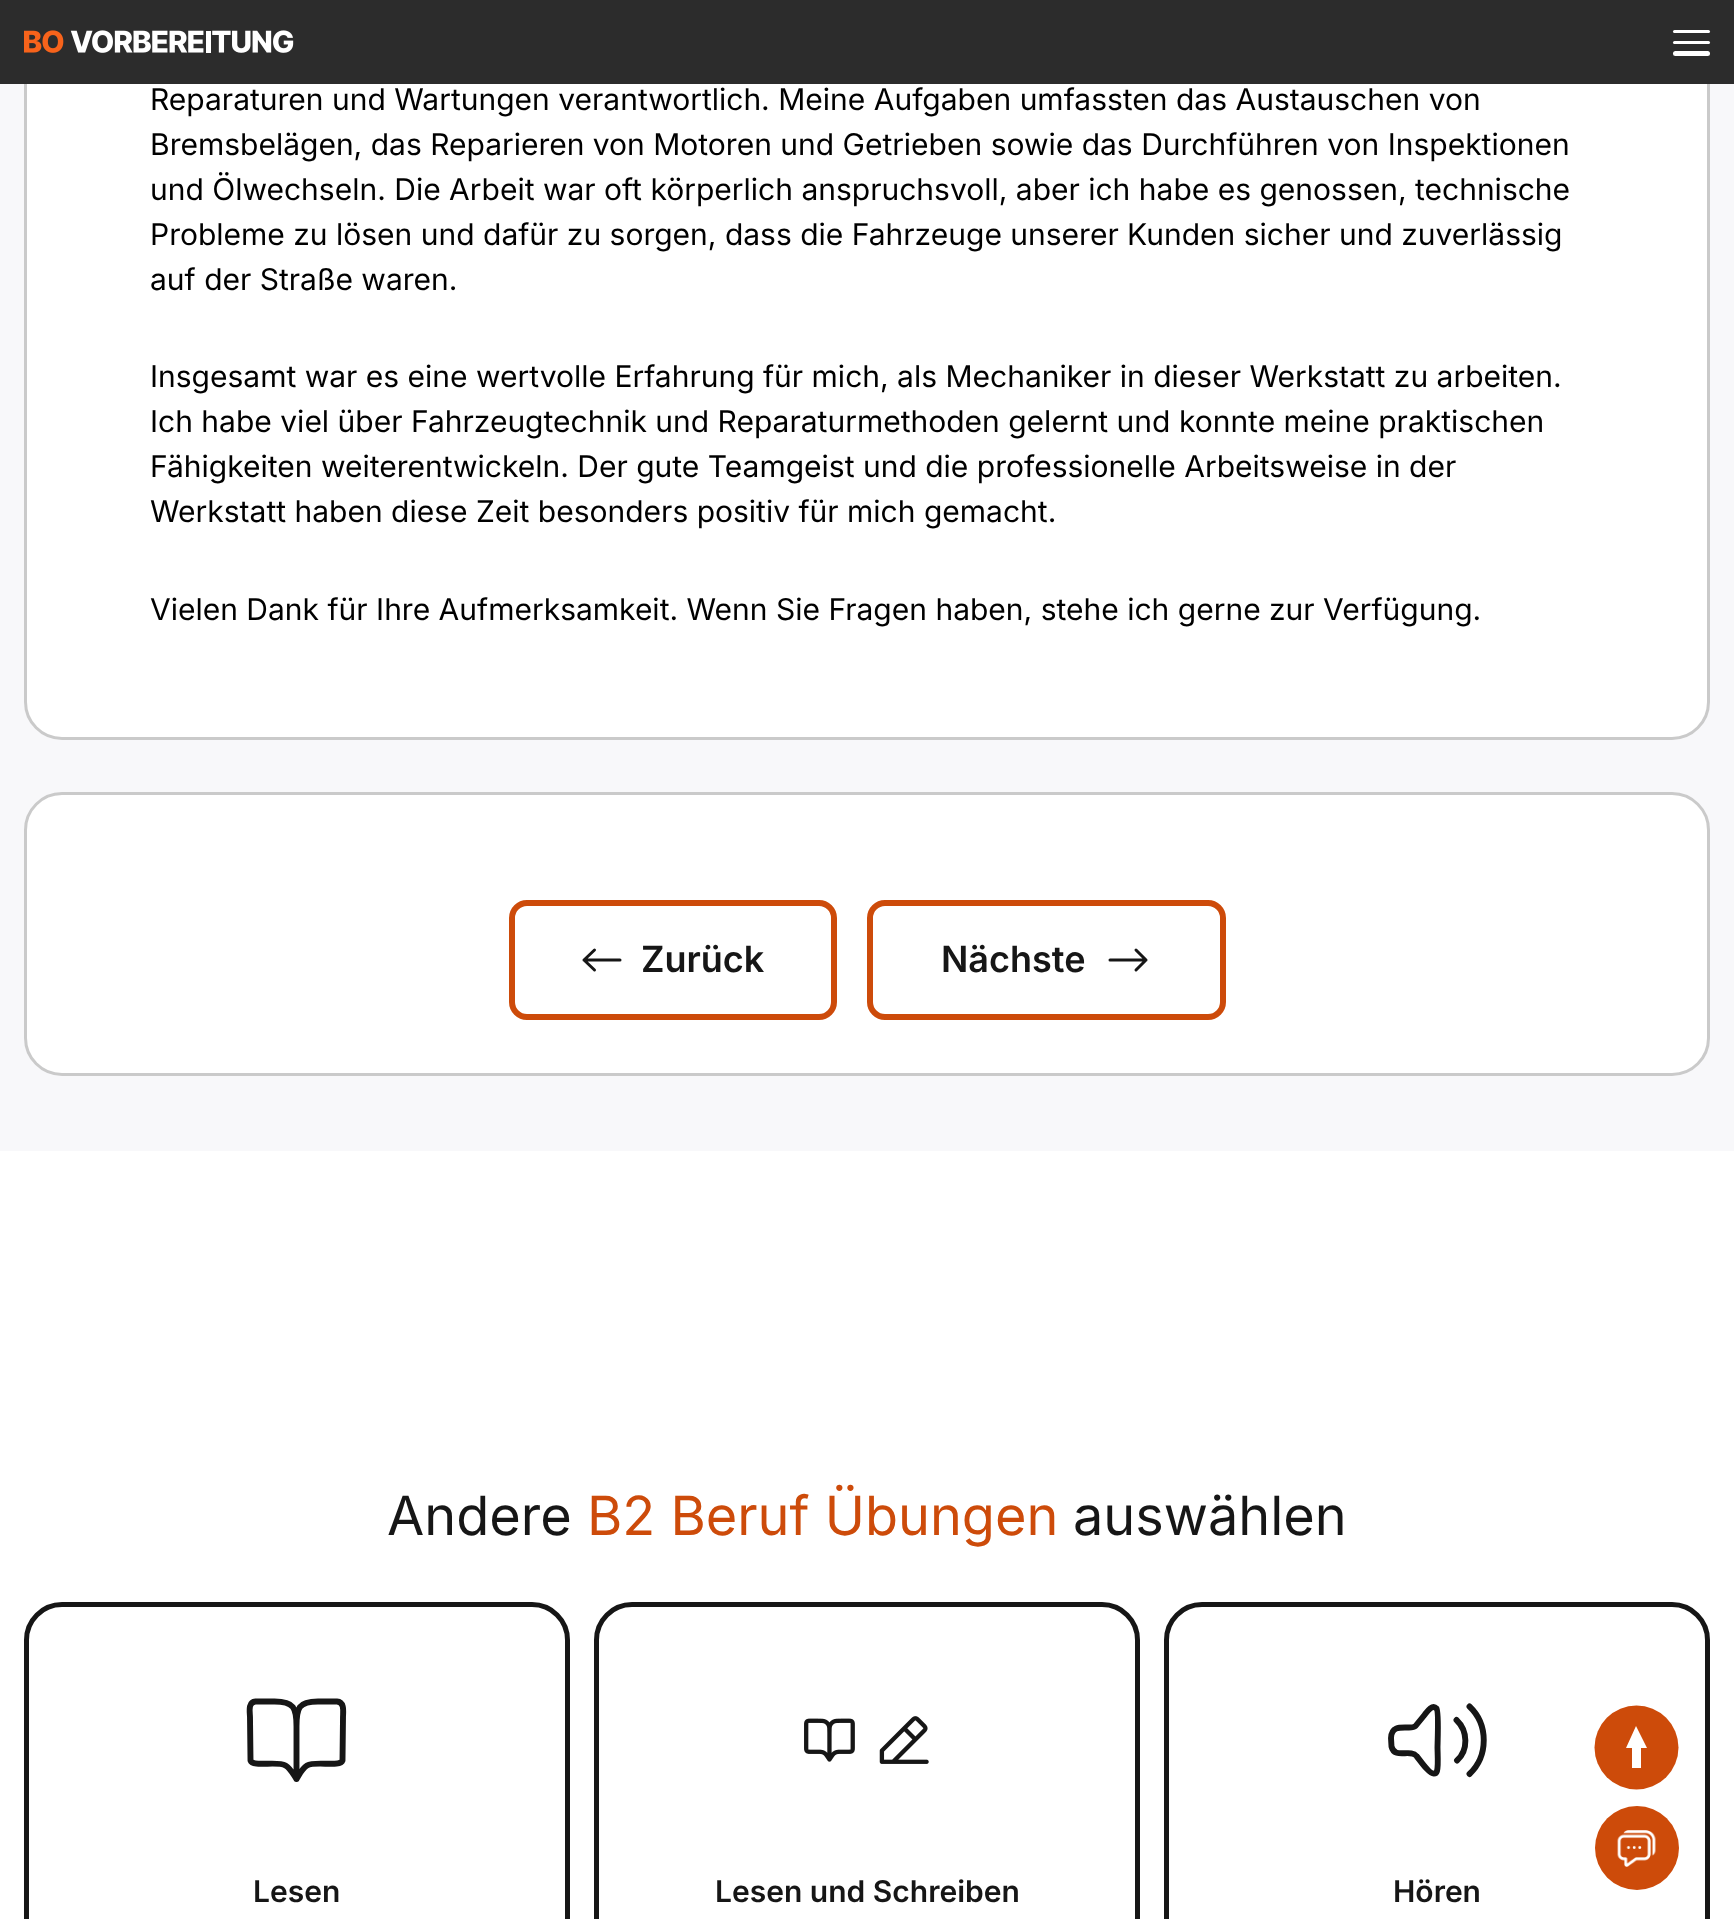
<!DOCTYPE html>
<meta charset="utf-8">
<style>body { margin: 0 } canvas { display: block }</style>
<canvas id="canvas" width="1734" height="1919"></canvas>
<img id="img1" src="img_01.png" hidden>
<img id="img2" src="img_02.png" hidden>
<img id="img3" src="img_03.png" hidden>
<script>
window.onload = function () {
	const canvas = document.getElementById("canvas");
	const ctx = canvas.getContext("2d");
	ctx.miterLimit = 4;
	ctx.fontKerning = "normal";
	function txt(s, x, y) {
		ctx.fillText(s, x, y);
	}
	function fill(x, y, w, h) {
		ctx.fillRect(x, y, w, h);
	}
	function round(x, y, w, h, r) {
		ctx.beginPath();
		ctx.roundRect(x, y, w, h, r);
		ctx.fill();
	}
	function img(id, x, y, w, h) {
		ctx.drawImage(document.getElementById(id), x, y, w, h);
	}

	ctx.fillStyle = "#FFFFFF";
	fill(0, 0, 1734, 1919);
	ctx.fillStyle = "#F8F8FA";
	fill(0, 84, 1734, 1067);
	ctx.fillStyle = "#FFFFFF";
	ctx.beginPath();
	ctx.roundRect(25.5, -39.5, 1683, 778, 36.5);
	ctx.fill();
	ctx.strokeStyle = "#CACACA";
	ctx.lineWidth = 3;
	ctx.stroke();
	ctx.fillStyle = "#2C2C2C";
	fill(0, 0, 1734, 84);
	img("img1", 24, 30, 270, 23);
	ctx.fillStyle = "#FFFFFF";
	round(1673, 30, 37, 3, 1.5);
	round(1673, 41, 37, 3, 1.5);
	round(1673, 51, 37, 5, 2.5);
	ctx.beginPath();
	ctx.roundRect(25.5, 793.5, 1683, 281, 36.5);
	ctx.fill();
	ctx.stroke();
	ctx.beginPath();
	ctx.roundRect(512, 903, 322, 114, 15);
	ctx.strokeStyle = "#CD4B0A";
	ctx.lineWidth = 6;
	ctx.stroke();
	ctx.beginPath();
	ctx.moveTo(584, 960);
	ctx.lineTo(594.5, 970);
	ctx.moveTo(584, 960);
	ctx.lineTo(594.5, 950);
	ctx.moveTo(584, 960);
	ctx.lineTo(620, 960);
	ctx.strokeStyle = "#161616";
	ctx.lineWidth = 3;
	ctx.lineCap = "round";
	ctx.lineJoin = "round";
	ctx.stroke();
	ctx.beginPath();
	ctx.roundRect(870, 903, 353, 114, 15);
	ctx.strokeStyle = "#CD4B0A";
	ctx.lineWidth = 6;
	ctx.lineJoin = "miter";
	ctx.stroke();
	ctx.beginPath();
	ctx.moveTo(1146, 960);
	ctx.lineTo(1136, 950);
	ctx.moveTo(1146, 960);
	ctx.lineTo(1136, 970);
	ctx.moveTo(1146, 960);
	ctx.lineTo(1110, 960);
	ctx.strokeStyle = "#161616";
	ctx.lineWidth = 3;
	ctx.lineJoin = "round";
	ctx.stroke();
	ctx.beginPath();
	ctx.roundRect(26.5, 1604.5, 541, 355, 35.5);
	ctx.lineWidth = 5;
	ctx.lineJoin = "miter";
	ctx.stroke();
	ctx.beginPath();
	ctx.moveTo(296.5, 1726.5);
	ctx.lineTo(296.5, 1779);
	ctx.moveTo(296.5, 1726.5);
	ctx.bezierCurveTo(296.5, 1708, 298.5, 1701.5, 318, 1701.5);
	ctx.lineTo(337, 1701.5);
	ctx.bezierCurveTo(345, 1702, 343, 1712.5, 343, 1717.5);
	ctx.lineTo(342.5, 1760.5);
	ctx.bezierCurveTo(340, 1767.5, 315.5, 1760.5, 307, 1765.5);
	ctx.bezierCurveTo(302, 1768.5, 299.5, 1774.5, 296.5, 1779);
	ctx.moveTo(296.5, 1726.5);
	ctx.bezierCurveTo(296.5, 1708, 294, 1701.5, 274.5, 1701.5);
	ctx.lineTo(255.5, 1701.5);
	ctx.bezierCurveTo(247.5, 1702, 250, 1712.5, 250, 1717.5);
	ctx.lineTo(250.5, 1760.5);
	ctx.bezierCurveTo(253, 1767.5, 277, 1760.5, 285.5, 1765.5);
	ctx.bezierCurveTo(290.5, 1768.5, 293.5, 1774.5, 296.5, 1779);
	ctx.lineWidth = 5.9;
	ctx.lineJoin = "round";
	ctx.stroke();
	ctx.beginPath();
	ctx.roundRect(596.5, 1604.5, 541, 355, 35.5);
	ctx.lineWidth = 5;
	ctx.lineJoin = "miter";
	ctx.stroke();
	img("img2", 804, 1716, 125, 48);
	ctx.beginPath();
	ctx.roundRect(1166.5, 1604.5, 541, 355, 35.5);
	ctx.stroke();
	ctx.beginPath();
	ctx.moveTo(1469.5, 1706.5);
	ctx.bezierCurveTo(1488.5, 1724.5, 1488.5, 1756, 1469.5, 1774);
	ctx.moveTo(1456.5, 1720);
	ctx.bezierCurveTo(1468, 1731, 1468.5, 1750, 1457, 1760.5);
	ctx.moveTo(1416.5, 1756);
	ctx.bezierCurveTo(1419.5, 1759.5, 1429.5, 1774.5, 1434, 1773.5);
	ctx.bezierCurveTo(1435.5, 1773.5, 1436.5, 1772.5, 1437, 1771);
	ctx.bezierCurveTo(1438.5, 1765.5, 1437.5, 1752.5, 1437.5, 1747.5);
	ctx.bezierCurveTo(1437.5, 1743.5, 1439, 1711.5, 1436.5, 1708.5);
	ctx.bezierCurveTo(1432, 1703.5, 1426.5, 1712.5, 1424.5, 1715);
	ctx.lineTo(1415.5, 1726);
	ctx.bezierCurveTo(1414, 1727.5, 1411.5, 1727.5, 1409, 1727.5);
	ctx.bezierCurveTo(1400.5, 1727.5, 1391.5, 1726, 1391, 1738);
	ctx.lineTo(1391.5, 1746.5);
	ctx.bezierCurveTo(1394.5, 1759.5, 1410.5, 1748.5, 1416.5, 1756);
	ctx.closePath();
	ctx.lineWidth = 5.9;
	ctx.lineJoin = "round";
	ctx.stroke();
	ctx.fillStyle = "#CD4B0A";
	ctx.beginPath();
	ctx.arc(1636.5, 1747.5, 42, 0, Math.PI * 2);
	ctx.fill();
	ctx.fillStyle = "#FFFFFF";
	ctx.beginPath();
	ctx.moveTo(1636, 1726);
	ctx.lineTo(1647, 1748);
	ctx.lineTo(1641, 1748);
	ctx.lineTo(1641, 1768);
	ctx.lineTo(1632, 1768);
	ctx.lineTo(1632, 1748);
	ctx.lineTo(1626, 1748);
	ctx.closePath();
	ctx.fill();
	ctx.fillStyle = "#CD4B0A";
	ctx.beginPath();
	ctx.arc(1637, 1848, 42, 0, Math.PI * 2);
	ctx.fill();
	img("img3", 1617, 1830, 39, 37);
	ctx.font = "30px Inter";
	ctx.fillStyle = "#000000";
	txt("Reparaturen und Wartungen verantwortlich. Meine Aufgaben umfassten das Austauschen von", 150, 110);
	txt("Bremsbelägen, das Reparieren von Motoren und Getrieben sowie das Durchführen von Inspektionen", 150, 155);
	txt("und Ölwechseln. Die Arbeit war oft körperlich anspruchsvoll, aber ich habe es genossen, technische", 150, 200);
	txt("Probleme zu lösen und dafür zu sorgen, dass die Fahrzeuge unserer Kunden sicher und zuverlässig", 150, 245);
	txt("auf der Straße waren.", 150, 290);
	txt("Insgesamt war es eine wertvolle Erfahrung für mich, als Mechaniker in dieser Werkstatt zu arbeiten.", 150, 387);
	txt("Ich habe viel über Fahrzeugtechnik und Reparaturmethoden gelernt und konnte meine praktischen", 150, 432);
	txt("Fähigkeiten weiterentwickeln. Der gute Teamgeist und die professionelle Arbeitsweise in der", 150, 477);
	txt("Werkstatt haben diese Zeit besonders positiv für mich gemacht.", 150, 522);
	txt("Vielen Dank für Ihre Aufmerksamkeit. Wenn Sie Fragen haben, stehe ich gerne zur Verfügung.", 150, 620);
	ctx.font = "600 36px Inter";
	ctx.fillStyle = "#161616";
	txt("Zurück", 641, 972);
	txt("Nächste", 941, 972);
	ctx.font = "54px Inter";
	txt("Andere", 387, 1535);
	ctx.fillStyle = "#CD4B0A";
	txt("B2 Beruf Übungen", 587, 1535);
	ctx.fillStyle = "#161616";
	txt("auswählen", 1073, 1535);
	ctx.font = "600 30px Inter";
	txt("Lesen", 253, 1902);
	txt("Lesen und Schreiben", 715, 1902);
	txt("Hören", 1393, 1902);
};
</script>
